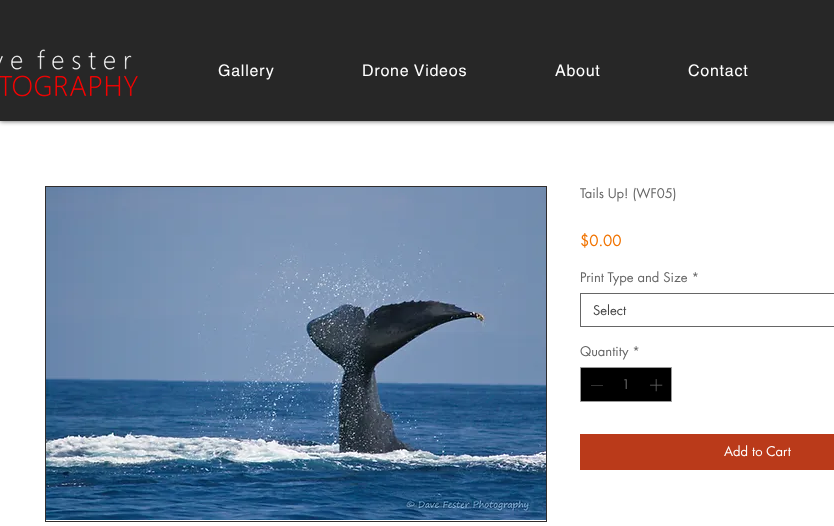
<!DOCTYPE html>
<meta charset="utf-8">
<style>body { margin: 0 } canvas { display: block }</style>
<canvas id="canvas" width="834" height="526"></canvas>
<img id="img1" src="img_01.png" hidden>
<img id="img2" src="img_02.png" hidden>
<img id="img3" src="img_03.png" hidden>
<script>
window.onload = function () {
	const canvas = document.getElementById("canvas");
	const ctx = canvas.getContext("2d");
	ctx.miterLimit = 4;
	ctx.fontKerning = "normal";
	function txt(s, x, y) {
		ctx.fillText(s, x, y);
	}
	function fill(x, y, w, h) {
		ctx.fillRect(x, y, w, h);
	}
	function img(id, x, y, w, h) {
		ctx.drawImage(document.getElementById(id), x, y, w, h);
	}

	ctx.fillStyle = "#FFFFFF";
	fill(0, 0, 834, 526);
	ctx.fillStyle = "rgba(0, 0, 0, 0.7)";
	ctx.filter = "blur(2.5px)";
	ctx.beginPath();
	ctx.rect(0, 0, 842, 121);
	ctx.fill();
	ctx.filter = "none";
	ctx.fillStyle = "#272727";
	fill(0, 0, 834, 121);
	img("img1", 0, 49, 138, 48);
	ctx.strokeStyle = "#302D2D";
	ctx.strokeRect(45.5, 186.5, 501, 335);
	img("img2", 46, 187, 500, 333);
	ctx.strokeStyle = "#666666";
	ctx.strokeRect(580.5, 293.5, 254, 33);
	ctx.fillStyle = "#000000";
	ctx.beginPath();
	ctx.rect(580.5, 367.5, 91, 34);
	ctx.fill();
	ctx.strokeStyle = "#999999";
	ctx.stroke();
	ctx.fillStyle = "#666666";
	ctx.beginPath();
	ctx.moveTo(603, 385);
	ctx.lineTo(603, 385.5);
	ctx.lineTo(591, 385.5);
	ctx.lineTo(591, 385);
	ctx.closePath();
	ctx.fill("evenodd");
	img("img3", 650, 379, 13, 13);
	ctx.fillStyle = "#BA3A1A";
	fill(580, 434, 254, 36);
	ctx.letterSpacing = "0.75px";
	ctx.font = "16px helvetica";
	ctx.fillStyle = "#FFFFFF";
	txt("Gallery", 218, 76);
	txt("Drone Videos", 362, 76);
	txt("About", 555, 76);
	txt("Contact", 688, 76);
	ctx.letterSpacing = "0px";
	ctx.font = "13px futura";
	ctx.fillStyle = "#666666";
	txt("Tails Up! (WF05)", 580, 198);
	ctx.font = "15px futura";
	ctx.fillStyle = "#F17300";
	txt("$0.00", 580, 246);
	ctx.font = "13px futura";
	ctx.fillStyle = "#666666";
	txt("Print Type and Size *", 580, 282);
	ctx.fillStyle = "#444444";
	txt("Select", 593, 315);
	ctx.fillStyle = "#666666";
	txt("Quantity *", 580, 356);
	txt("1", 622, 389);
	ctx.fillStyle = "#FFFFFF";
	txt("Add to Cart", 724, 456);
};
</script>
